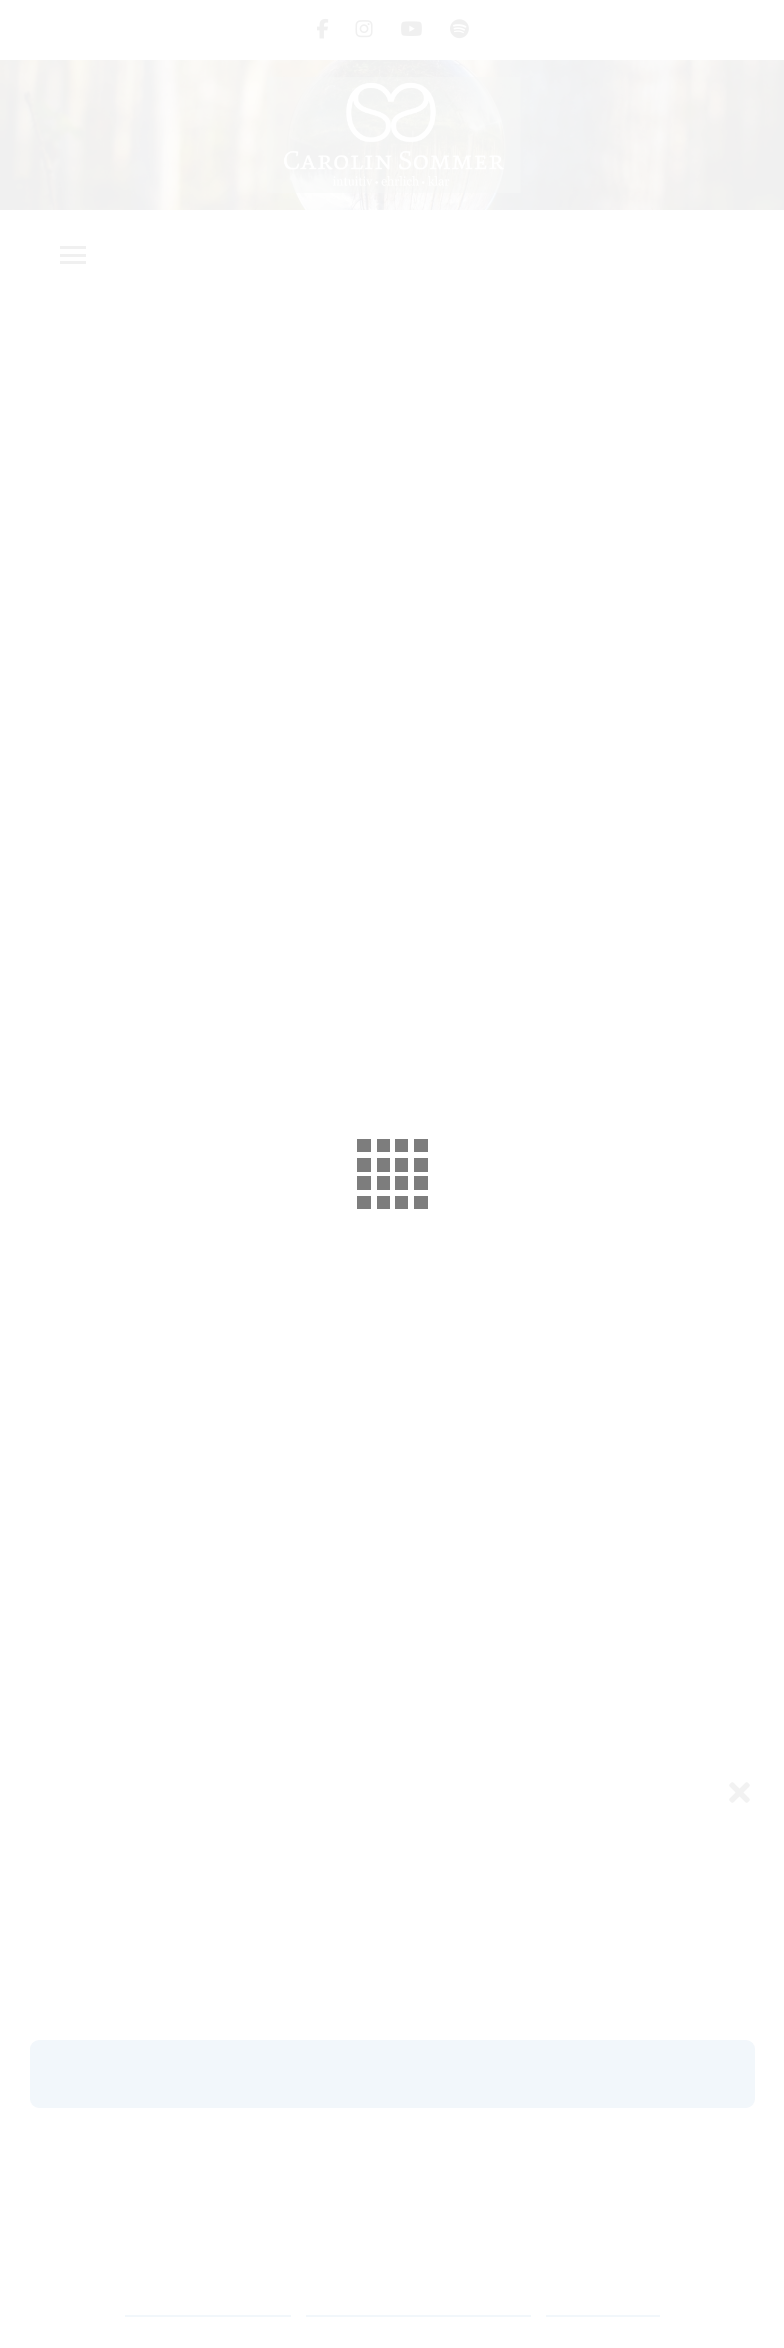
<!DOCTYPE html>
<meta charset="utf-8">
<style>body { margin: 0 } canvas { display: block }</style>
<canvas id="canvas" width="784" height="2348"></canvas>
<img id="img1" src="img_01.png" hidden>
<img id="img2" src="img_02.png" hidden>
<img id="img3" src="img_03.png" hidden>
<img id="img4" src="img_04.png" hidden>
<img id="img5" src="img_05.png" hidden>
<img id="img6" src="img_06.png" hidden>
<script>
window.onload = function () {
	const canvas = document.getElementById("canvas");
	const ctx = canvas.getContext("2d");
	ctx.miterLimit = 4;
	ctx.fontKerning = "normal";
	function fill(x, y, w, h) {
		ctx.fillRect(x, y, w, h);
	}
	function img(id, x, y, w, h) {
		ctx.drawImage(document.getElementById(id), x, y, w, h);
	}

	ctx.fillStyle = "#FFFFFF";
	fill(0, 0, 784, 2348);
	img("img1", 317, 18, 12, 21);
	img("img2", 355, 20, 18, 18);
	img("img3", 401, 21, 21, 15);
	img("img4", 450, 19, 19, 20);
	img("img5", 0, 60, 784, 150);
	ctx.fillStyle = "#F0F0F0";
	fill(60, 246, 26, 3);
	fill(60, 254, 26, 3);
	fill(60, 261, 26, 3);
	ctx.fillStyle = "rgba(51, 51, 51, 0.64)";
	fill(357, 1139, 14, 13);
	fill(377, 1139, 13, 13);
	fill(395, 1139, 13, 13);
	fill(414, 1139, 14, 13);
	fill(357, 1158, 14, 14);
	fill(377, 1158, 13, 14);
	fill(395, 1158, 13, 14);
	fill(414, 1158, 14, 14);
	ctx.fillStyle = "#7D7D7D";
	fill(357, 1176, 14, 14);
	fill(377, 1176, 13, 14);
	fill(395, 1176, 13, 14);
	fill(414, 1176, 14, 14);
	fill(357, 1196, 14, 13);
	fill(377, 1196, 13, 13);
	fill(395, 1196, 13, 13);
	fill(414, 1196, 14, 13);
	img("img6", 729, 1782, 21, 21);
	ctx.fillStyle = "#F2F7FB";
	ctx.beginPath();
	ctx.roundRect(31, 2041, 723, 66, 8);
	ctx.fill();
	ctx.strokeStyle = "#F2F7FB";
	ctx.lineWidth = 2;
	ctx.stroke();
	fill(125, 2315, 166, 2);
	fill(306, 2315, 225, 2);
	fill(546, 2315, 114, 2);
};
</script>
